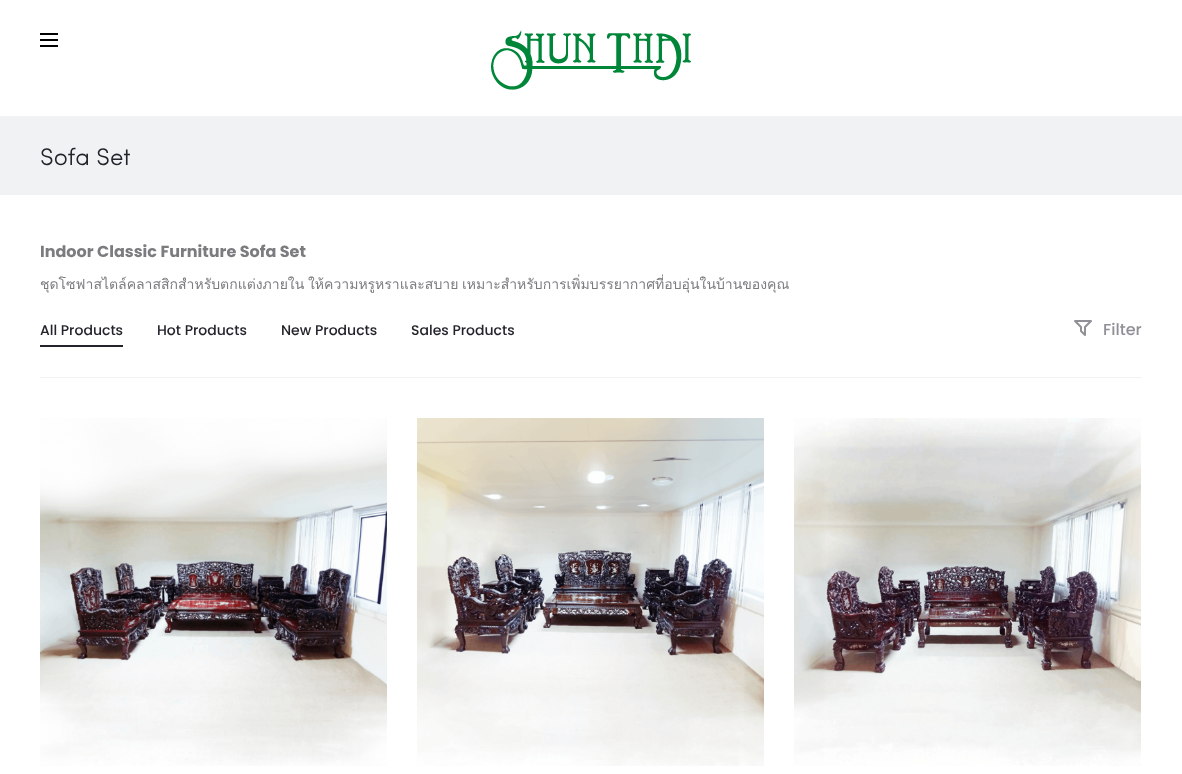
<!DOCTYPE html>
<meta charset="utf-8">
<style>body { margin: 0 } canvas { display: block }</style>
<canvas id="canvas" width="1182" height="774"></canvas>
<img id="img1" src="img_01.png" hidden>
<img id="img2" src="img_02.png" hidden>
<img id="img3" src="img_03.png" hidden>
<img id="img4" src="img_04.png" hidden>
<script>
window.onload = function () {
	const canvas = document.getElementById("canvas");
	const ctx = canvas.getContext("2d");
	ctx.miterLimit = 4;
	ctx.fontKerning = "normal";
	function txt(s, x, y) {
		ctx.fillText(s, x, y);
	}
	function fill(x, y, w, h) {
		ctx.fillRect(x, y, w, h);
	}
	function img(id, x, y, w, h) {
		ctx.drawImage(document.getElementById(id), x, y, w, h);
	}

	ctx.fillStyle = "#FFFFFF";
	fill(0, 0, 1182, 774);
	ctx.fillStyle = "#000000";
	fill(40, 39, 18, 2);
	fill(40, 33, 18, 2);
	fill(40, 45, 18, 2);
	img("img1", 491, 30, 200, 60);
	ctx.fillStyle = "#F1F2F4";
	fill(0, 116, 1182, 79);
	fill(40, 377, 1102, 1);
	ctx.fillStyle = "#23232C";
	fill(40, 345, 83, 2);
	ctx.beginPath();
	ctx.moveTo(1085, 327);
	ctx.lineTo(1085, 335);
	ctx.lineTo(1081, 331);
	ctx.lineTo(1081, 327);
	ctx.lineTo(1075, 321);
	ctx.lineTo(1091, 321);
	ctx.closePath();
	ctx.strokeStyle = "#909097";
	ctx.lineWidth = 2;
	ctx.lineJoin = "round";
	ctx.stroke();
	img("img2", 40, 418, 347, 348);
	img("img3", 417, 418, 347, 348);
	img("img4", 794, 418, 347, 348);
	ctx.font = "24px Sofia";
	txt("Sofa Set", 40, 165);
	ctx.font = "bold 16px Poppins";
	ctx.fillStyle = "#7C7C80";
	txt("Indoor Classic Furniture Sofa Set", 40, 257);
	ctx.wordSpacing = "-1px";
	ctx.font = "14px Loma";
	txt("ชุดโซฟาสไตล์คลาสสิกสำหรับตกแต่งภายใน ให้ความหรูหราและสบาย เหมาะสำหรับการเพิ่มบรรยากาศที่อบอุ่นในบ้านของคุณ", 40, 289);
	ctx.wordSpacing = "0px";
	ctx.font = "500 14px Poppins";
	ctx.fillStyle = "#23232C";
	txt("All Products", 40, 335);
	txt("Hot Products", 157, 335);
	txt("New Products", 281, 335);
	txt("Sales Products", 411, 335);
	ctx.font = "500 16px Poppins";
	ctx.fillStyle = "#909097";
	txt("Filter", 1103, 335);
};
</script>
